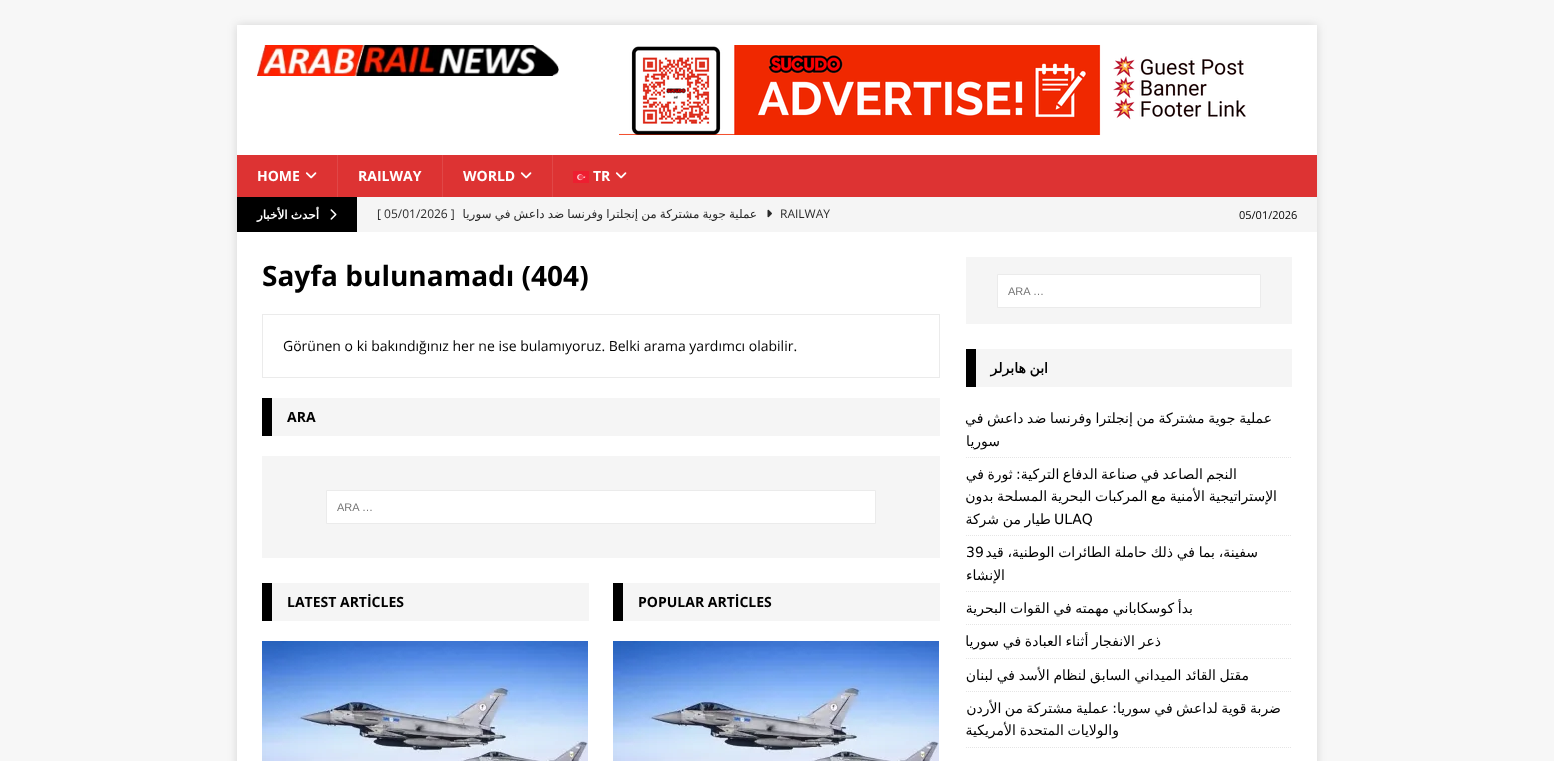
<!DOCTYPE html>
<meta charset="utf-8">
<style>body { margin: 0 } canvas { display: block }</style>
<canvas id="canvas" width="1554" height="761"></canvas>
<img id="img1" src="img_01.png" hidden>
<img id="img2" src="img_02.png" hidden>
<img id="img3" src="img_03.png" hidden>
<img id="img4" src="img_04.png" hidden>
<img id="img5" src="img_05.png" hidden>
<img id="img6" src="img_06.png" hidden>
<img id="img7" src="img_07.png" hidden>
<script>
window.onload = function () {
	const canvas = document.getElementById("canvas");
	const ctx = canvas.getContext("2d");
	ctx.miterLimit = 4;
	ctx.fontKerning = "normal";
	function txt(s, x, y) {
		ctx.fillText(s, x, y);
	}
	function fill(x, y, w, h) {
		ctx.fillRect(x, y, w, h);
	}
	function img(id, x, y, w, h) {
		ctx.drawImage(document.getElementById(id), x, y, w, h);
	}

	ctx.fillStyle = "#F7F7F7";
	fill(0, 0, 1554, 761);
	ctx.fillStyle = "rgba(50, 50, 50, 0.17)";
	ctx.filter = "blur(5px)";
	ctx.beginPath();
	ctx.rect(237, 25, 1080, 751);
	ctx.fill();
	ctx.filter = "none";
	ctx.fillStyle = "#FFFFFF";
	fill(237, 25, 1080, 130);
	img("img1", 619, 45, 627, 90);
	img("img2", 257, 45, 302, 31);
	ctx.fillStyle = "#DD3333";
	fill(237, 155, 1080, 42);
	ctx.fillStyle = "#E04747";
	fill(552, 155, 1, 42);
	img("img3", 615, 172, 12, 7);
	img("img4", 573, 171, 16, 12);
	fill(442, 155, 1, 42);
	img("img3", 520, 172, 12, 7);
	fill(337, 155, 1, 42);
	img("img3", 305, 172, 12, 7);
	ctx.fillStyle = "#F5F5F5";
	fill(357, 197, 960, 35);
	img("img5", 767, 209, 5, 9);
	ctx.fillStyle = "#000000";
	fill(237, 197, 120, 35);
	img("img6", 330, 209, 7, 11);
	ctx.fillStyle = "#FFFFFF";
	fill(237, 232, 1080, 529);
	ctx.fillStyle = "#F5F5F5";
	fill(966, 257, 326, 67);
	ctx.fillStyle = "#FFFFFF";
	ctx.beginPath();
	ctx.rect(997.5, 274.5, 263, 33);
	ctx.fill();
	ctx.strokeStyle = "#EBEBEB";
	ctx.stroke();
	ctx.fillStyle = "#F5F5F5";
	fill(976, 349, 316, 38);
	ctx.fillStyle = "#000000";
	fill(966, 349, 10, 38);
	ctx.beginPath();
	ctx.moveTo(966, 457.5);
	ctx.lineTo(1292, 457.5);
	ctx.strokeStyle = "#E5E5E5";
	ctx.setLineDash([1, 1]);
	ctx.stroke();
	ctx.beginPath();
	ctx.moveTo(966, 535.5);
	ctx.lineTo(1292, 535.5);
	ctx.stroke();
	ctx.beginPath();
	ctx.moveTo(966, 591.5);
	ctx.lineTo(1292, 591.5);
	ctx.stroke();
	ctx.beginPath();
	ctx.moveTo(966, 624.5);
	ctx.lineTo(1292, 624.5);
	ctx.stroke();
	ctx.beginPath();
	ctx.moveTo(966, 658.5);
	ctx.lineTo(1292, 658.5);
	ctx.stroke();
	ctx.beginPath();
	ctx.moveTo(966, 691.5);
	ctx.lineTo(1292, 691.5);
	ctx.stroke();
	ctx.beginPath();
	ctx.moveTo(966, 747.5);
	ctx.lineTo(1292, 747.5);
	ctx.stroke();
	ctx.strokeStyle = "#EBEBEB";
	ctx.setLineDash([]);
	ctx.strokeRect(262.5, 314.5, 677, 63);
	ctx.fillStyle = "#F5F5F5";
	fill(272, 398, 668, 38);
	ctx.fillStyle = "#000000";
	fill(262, 398, 10, 38);
	ctx.fillStyle = "#F5F5F5";
	fill(262, 456, 678, 102);
	ctx.fillStyle = "#FFFFFF";
	ctx.beginPath();
	ctx.rect(326.5, 490.5, 549, 33);
	ctx.fill();
	ctx.stroke();
	ctx.fillStyle = "#F5F5F5";
	fill(623, 583, 317, 38);
	ctx.fillStyle = "#000000";
	fill(613, 583, 10, 38);
	img("img7", 613, 641, 326, 120);
	ctx.fillStyle = "#F5F5F5";
	fill(272, 583, 317, 38);
	ctx.fillStyle = "#000000";
	fill(262, 583, 10, 38);
	img("img7", 262, 641, 326, 120);
	ctx.font = "bold 14px Open Sans";
	ctx.fillStyle = "#FFFFFF";
	txt("TR", 593, 181);
	txt("WORLD", 463, 181);
	txt("RAILWAY", 358, 181);
	txt("HOME", 257, 181);
	ctx.font = "11px Open Sans";
	ctx.fillStyle = "#000000";
	txt("05/01/2026", 1239, 219);
	ctx.font = "12px Open Sans";
	ctx.fillStyle = "#2A2A2A";
	txt("RAILWAY", 780, 218);
	ctx.wordSpacing = "-0.75px";
	ctx.direction = "rtl";
	ctx.font = "12px DejaVu Sans";
	txt("عملية جوية مشتركة من إنجلترا وفرنسا ضد داعش في سوريا", 757, 218);
	ctx.wordSpacing = "0px";
	ctx.direction = "ltr";
	ctx.font = "12px Open Sans";
	txt("[ 05/01/2026 ]", 377, 218);
	ctx.wordSpacing = "-0.75px";
	ctx.direction = "rtl";
	ctx.font = "bold 12px DejaVu Sans";
	ctx.fillStyle = "#FFFFFF";
	txt("أحدث الأخبار", 319, 219);
	ctx.wordSpacing = "0px";
	ctx.direction = "ltr";
	ctx.font = "11px Liberation Sans";
	ctx.fillStyle = "#757575";
	txt("ARA …", 1008, 295);
	ctx.wordSpacing = "-0.75px";
	ctx.direction = "rtl";
	ctx.font = "bold 14px DejaVu Sans";
	ctx.fillStyle = "#000000";
	txt("ابن هابرلر", 1048, 373);
	ctx.font = "14px DejaVu Sans";
	txt("عملية جوية مشتركة من إنجلترا وفرنسا ضد داعش في", 1272, 423);
	ctx.wordSpacing = "0px";
	txt("سوريا", 1000, 446);
	ctx.wordSpacing = "-1px";
	txt("النجم الصاعد في صناعة الدفاع التركية: ثورة في", 1237, 479);
	ctx.wordSpacing = "-0.75px";
	txt("الإستراتيجية الأمنية مع المركبات البحرية المسلحة بدون", 1277, 501);
	ctx.wordSpacing = "0px";
	ctx.direction = "ltr";
	txt("ULAQ", 1054, 524);
	ctx.wordSpacing = "-0.75px";
	ctx.direction = "rtl";
	txt("طيار من شركة", 1051, 524);
	txt("سفينة، بما في ذلك حاملة الطائرات الوطنية، قيد", 1258, 557);
	ctx.wordSpacing = "0px";
	ctx.direction = "ltr";
	txt("39", 966, 557);
	ctx.direction = "rtl";
	txt("الإنشاء", 1005, 580);
	ctx.wordSpacing = "-0.75px";
	txt("بدأ كوسكاباني مهمته في القوات البحرية", 1193, 613);
	txt("ذعر الانفجار أثناء العبادة في سوريا", 1161, 646);
	txt("مقتل القائد الميداني السابق لنظام الأسد في لبنان", 1249, 680);
	ctx.wordSpacing = "-1px";
	txt("ضربة قوية لداعش في سوريا: عملية مشتركة من الأردن", 1281, 713);
	ctx.wordSpacing = "-0.75px";
	txt("والولايات المتحدة الأمريكية", 1119, 735);
	ctx.wordSpacing = "0px";
	ctx.direction = "ltr";
	ctx.font = "bold 28px Open Sans";
	txt("Sayfa bulunamadı (404)", 262, 286);
	ctx.font = "14px Open Sans";
	txt("Görünen o ki bakındığınız her ne ise bulamıyoruz. Belki arama yardımcı olabilir.", 283, 351);
	ctx.font = "bold 14px Open Sans";
	txt("ARA", 287, 422);
	ctx.font = "11px Liberation Sans";
	ctx.fillStyle = "#757575";
	txt("ARA …", 337, 511);
	ctx.font = "bold 14px Open Sans";
	ctx.fillStyle = "#000000";
	txt("POPULAR ARTİCLES", 638, 607);
	txt("LATEST ARTİCLES", 287, 607);
};
</script>
